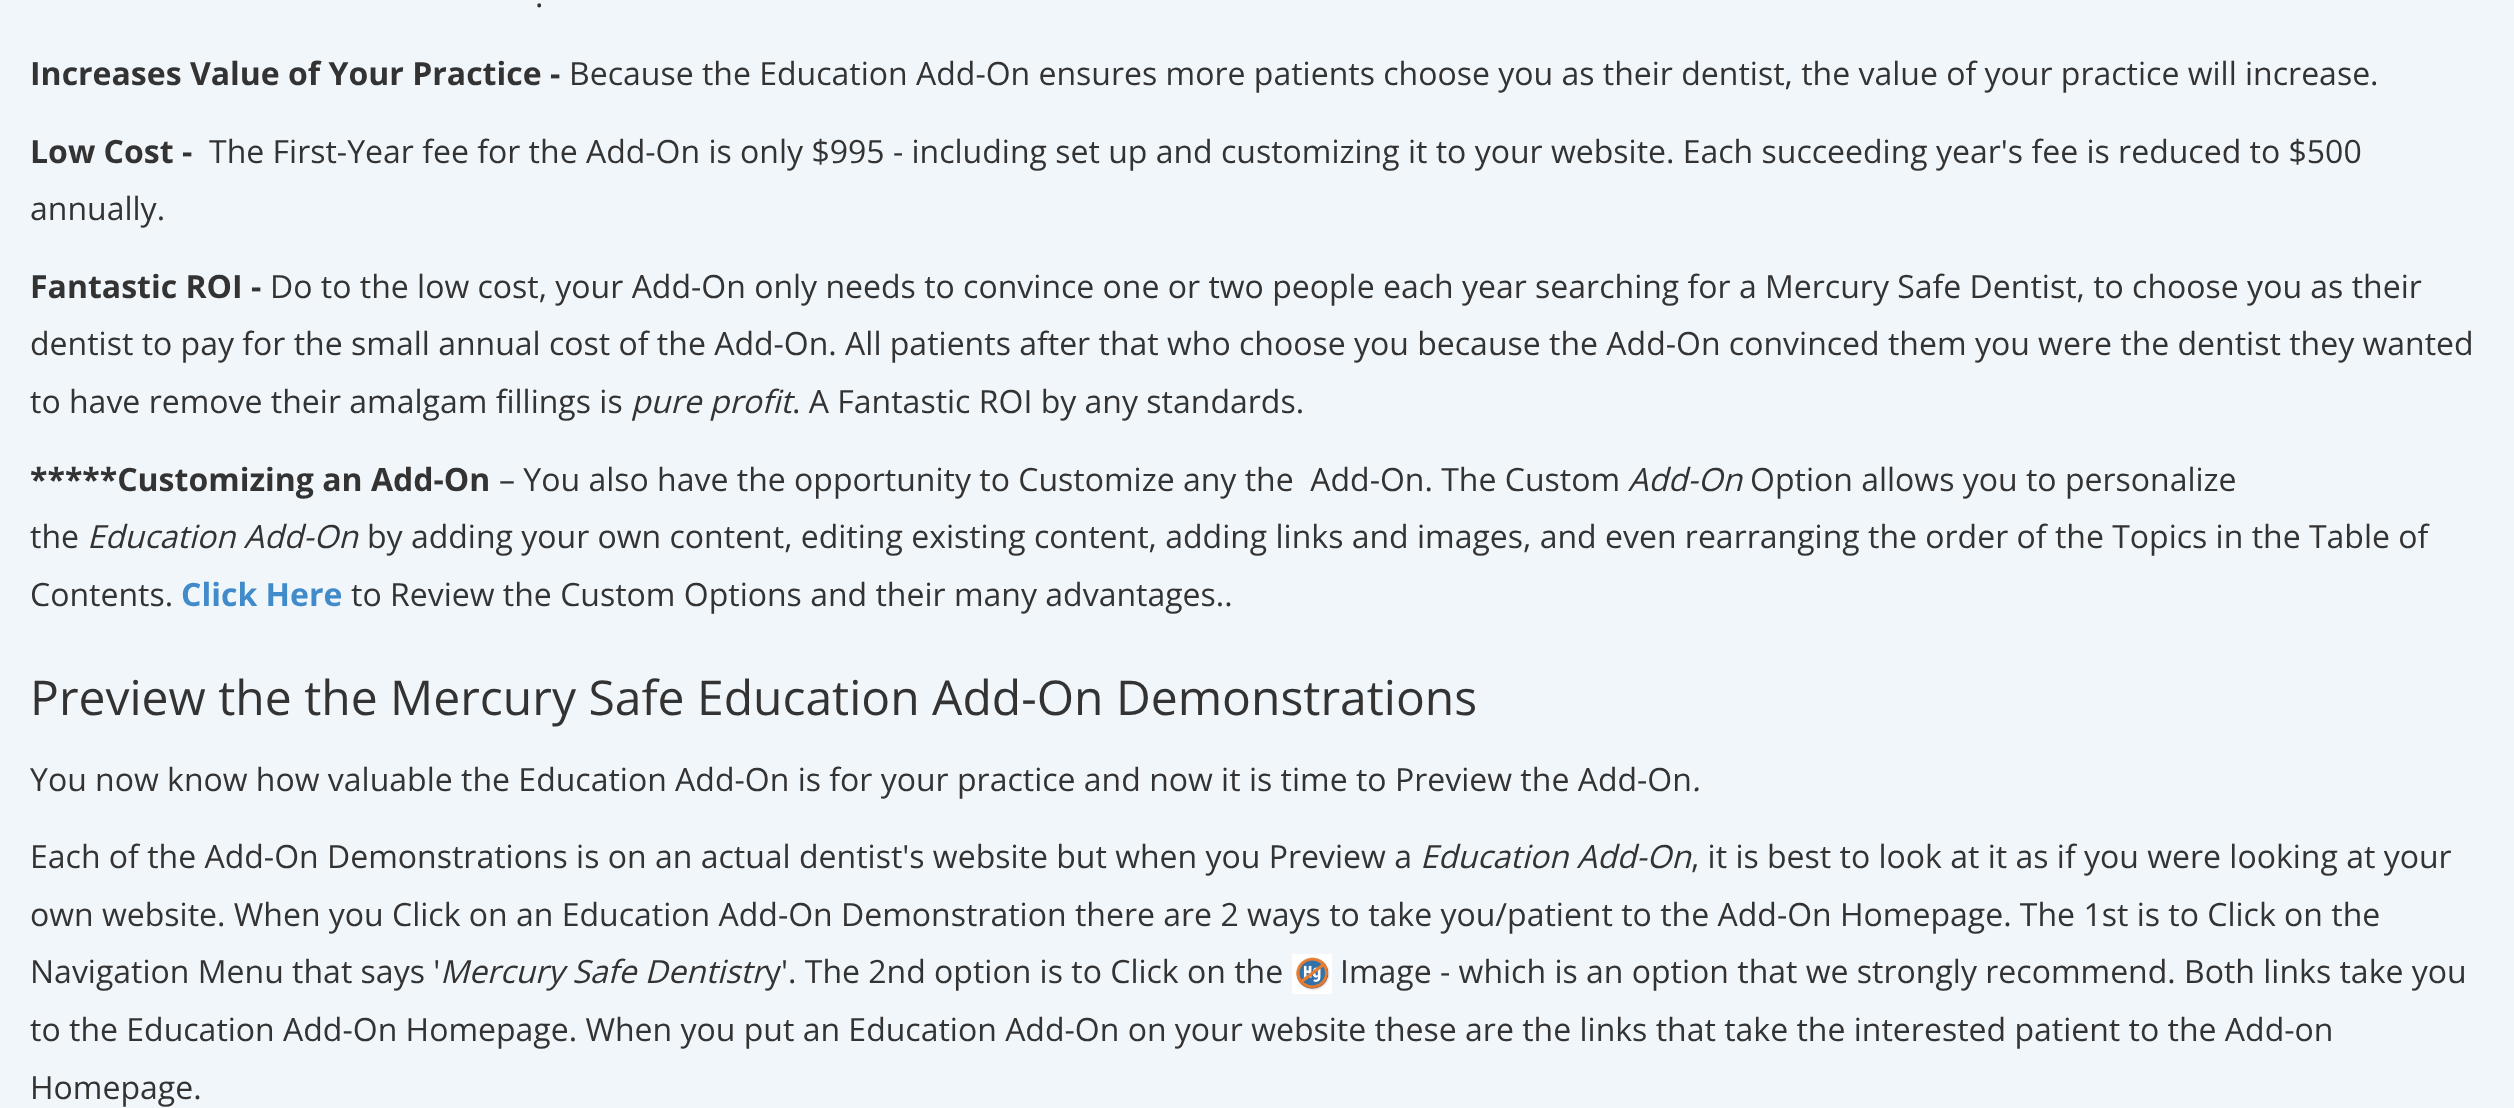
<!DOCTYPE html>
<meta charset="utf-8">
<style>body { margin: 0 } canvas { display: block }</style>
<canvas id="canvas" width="2514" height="1108"></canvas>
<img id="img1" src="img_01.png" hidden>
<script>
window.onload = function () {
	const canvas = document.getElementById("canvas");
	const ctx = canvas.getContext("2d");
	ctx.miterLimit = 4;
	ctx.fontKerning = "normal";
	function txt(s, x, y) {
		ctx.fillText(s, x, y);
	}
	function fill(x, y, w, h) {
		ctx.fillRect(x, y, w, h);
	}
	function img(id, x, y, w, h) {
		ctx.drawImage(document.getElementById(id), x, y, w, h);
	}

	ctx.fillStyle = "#F1F6FA";
	fill(0, 0, 2514, 1108);
	img("img1", 1292, 954, 40, 40);
	ctx.font = "32px Open Sans";
	ctx.fillStyle = "#333333";
	txt(".", 535, 7);
	ctx.font = "bold 32px Open Sans";
	txt("Increases Value of Your Practice -", 30, 85);
	ctx.font = "32px Open Sans";
	txt("Because the Education Add-On ensures more patients choose you as their dentist, the value of your practice will increase.", 569, 85);
	ctx.font = "bold 32px Open Sans";
	txt("Low Cost -", 30, 163);
	ctx.font = "32px Open Sans";
	txt("The First-Year fee for the Add-On is only $995 - including set up and customizing it to your website. Each succeeding year's fee is reduced to $500", 209, 163);
	txt("annually.", 30, 220);
	ctx.font = "bold 32px Open Sans";
	txt("Fantastic ROI -", 30, 298);
	ctx.font = "32px Open Sans";
	txt("Do to the low cost, your Add-On only needs to convince one or two people each year searching for a Mercury Safe Dentist, to choose you as their", 270, 298);
	txt("dentist to pay for the small annual cost of the Add-On. All patients after that who choose you because the Add-On convinced them you were the dentist they wanted", 30, 355);
	txt("to have remove their amalgam fillings is", 30, 413);
	ctx.font = "italic 32px Open Sans";
	txt("pure profit", 631, 413);
	ctx.font = "32px Open Sans";
	txt(". A Fantastic ROI by any standards.", 792, 413);
	ctx.font = "bold 32px Open Sans";
	txt("*****Customizing an Add-On", 30, 491);
	ctx.font = "32px Open Sans";
	txt("– You also have the opportunity to Customize any the  Add-On. The Custom", 499, 491);
	ctx.font = "italic 32px Open Sans";
	txt("Add-On", 1628, 491);
	ctx.font = "32px Open Sans";
	txt("Option allows you to personalize", 1750, 491);
	txt("the", 30, 548);
	ctx.font = "italic 32px Open Sans";
	txt("Education Add-On", 87, 548);
	ctx.font = "32px Open Sans";
	txt("by adding your own content, editing existing content, adding links and images, and even rearranging the order of the Topics in the Table of", 367, 548);
	txt("Contents.", 30, 606);
	ctx.font = "bold 32px Open Sans";
	ctx.fillStyle = "#428BCA";
	txt("Click Here", 181, 606);
	ctx.font = "32px Open Sans";
	ctx.fillStyle = "#333333";
	txt("to Review the Custom Options and their many advantages..", 351, 606);
	ctx.font = "48px Open Sans";
	txt("Preview the the Mercury Safe Education Add-On Demonstrations", 30, 715);
	ctx.font = "32px Open Sans";
	txt("You now know how valuable the Education Add-On is for your practice and now it is time to Preview the Add-On", 30, 791);
	ctx.font = "italic 32px Open Sans";
	txt(".", 1692, 791);
	ctx.font = "32px Open Sans";
	txt("Each of the Add-On Demonstrations is on an actual dentist's website but when you Preview a", 30, 868);
	ctx.font = "italic 32px Open Sans";
	txt("Education Add-On", 1420, 868);
	ctx.font = "32px Open Sans";
	txt(", it is best to look at it as if you were looking at your", 1691, 868);
	txt("own website. When you Click on an Education Add-On Demonstration there are 2 ways to take you/patient to the Add-On Homepage. The 1st is to Click on the", 30, 926);
	txt("Navigation Menu that says '", 30, 983);
	ctx.font = "italic 32px Open Sans";
	txt("Mercury Safe Dentistr", 440, 983);
	ctx.font = "32px Open Sans";
	txt("y'. The 2nd option is to Click on the", 765, 983);
	txt("Image - which is an option that we strongly recommend. Both links take you", 1340, 983);
	txt("to the Education Add-On Homepage. When you put an Education Add-On on your website these are the links that take the interested patient to the Add-on", 30, 1041);
	txt("Homepage.", 30, 1099);
};
</script>
